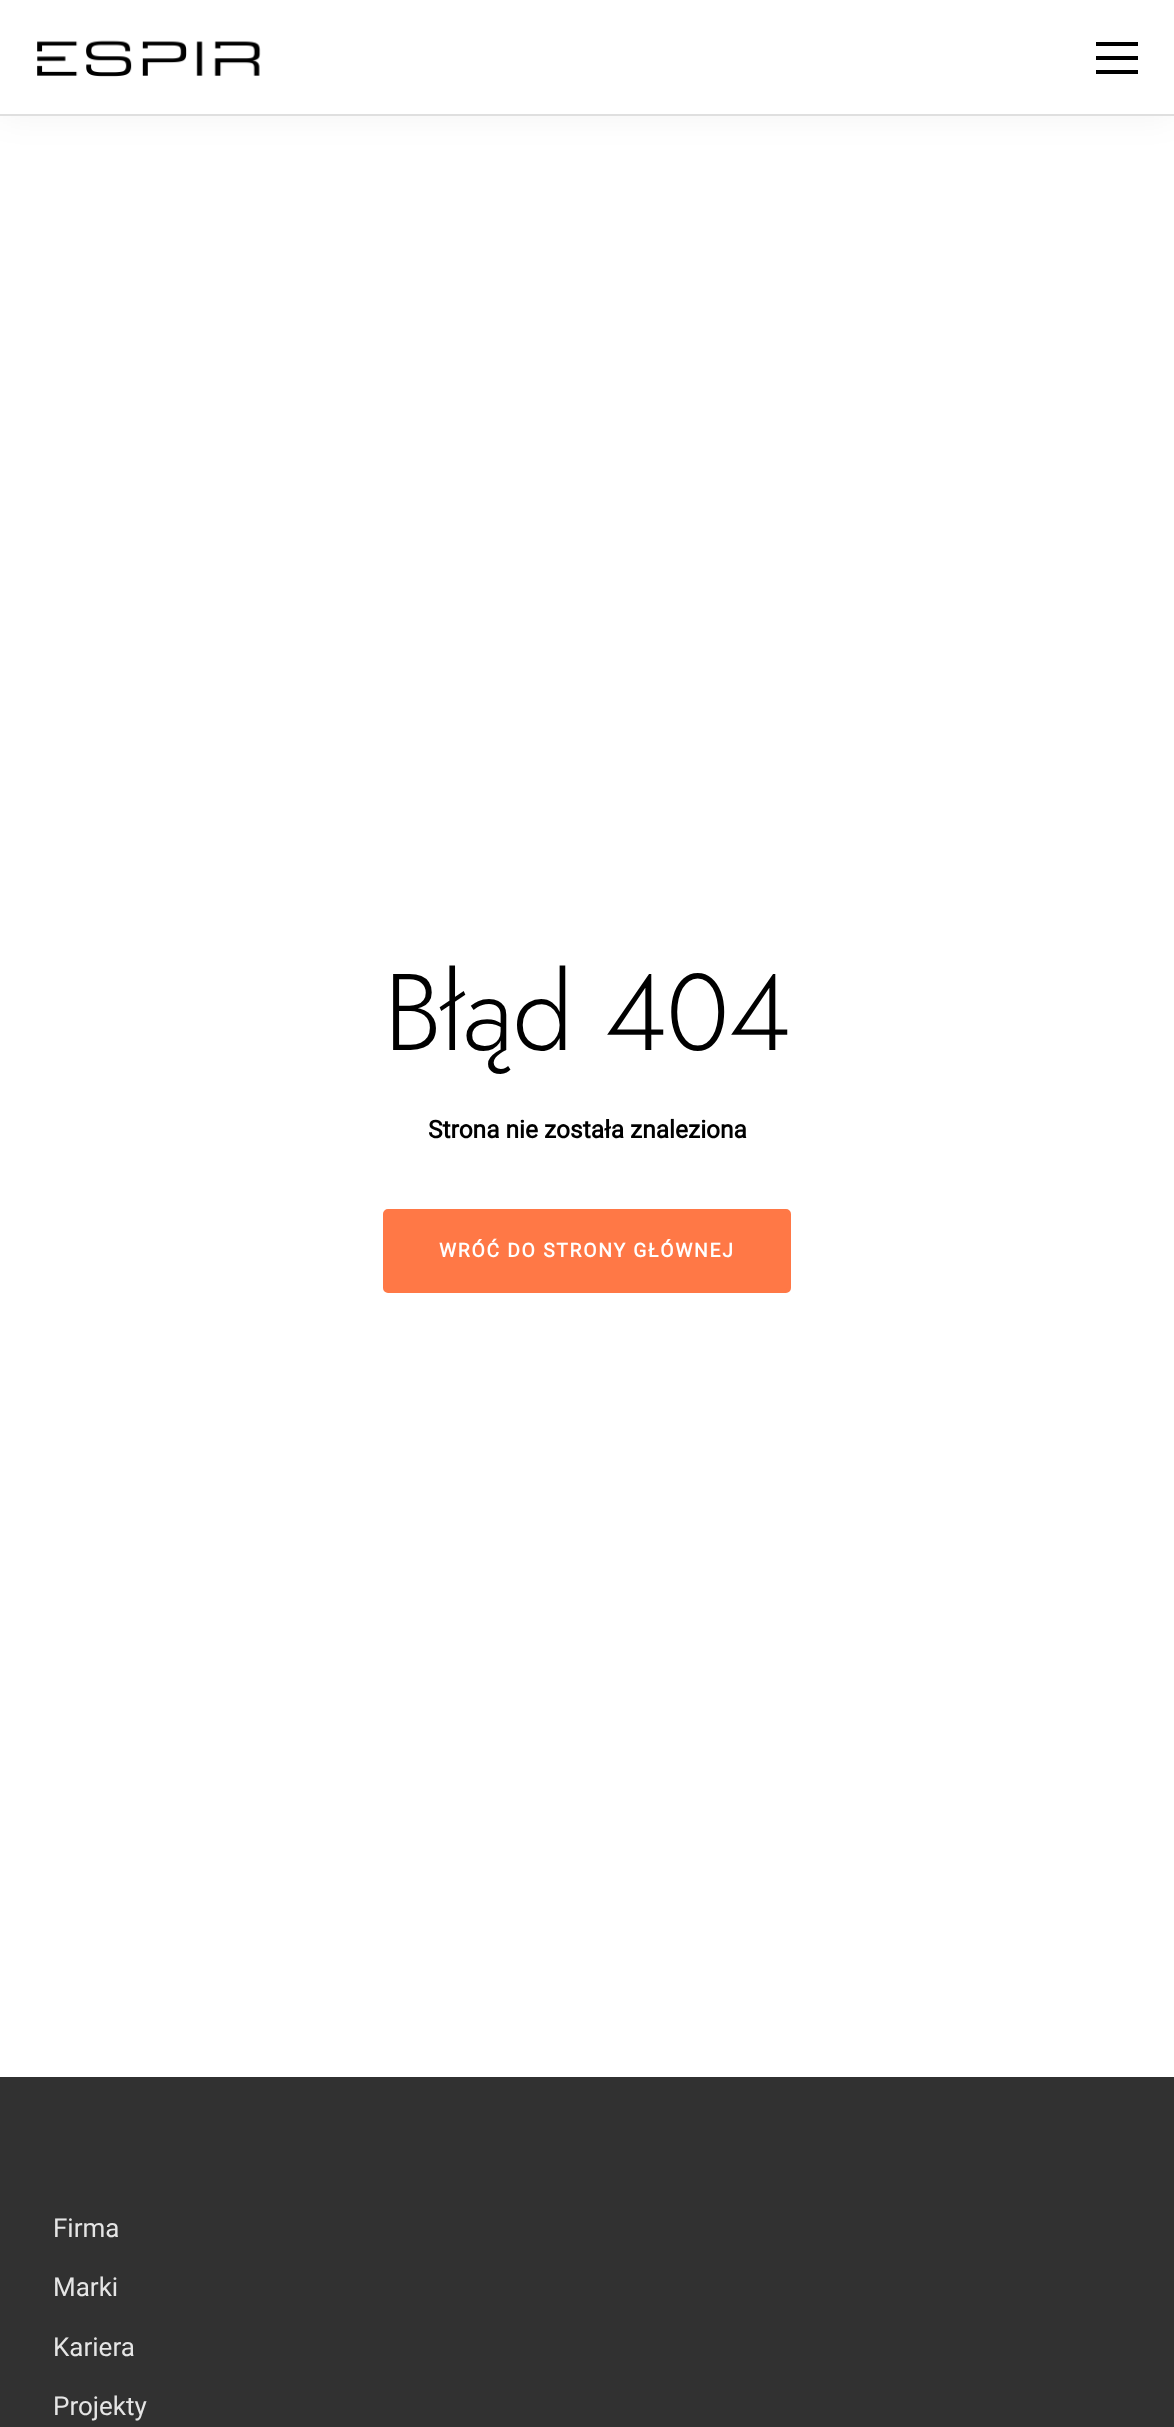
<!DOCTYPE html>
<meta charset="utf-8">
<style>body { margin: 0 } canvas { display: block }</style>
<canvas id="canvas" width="1174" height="2427"></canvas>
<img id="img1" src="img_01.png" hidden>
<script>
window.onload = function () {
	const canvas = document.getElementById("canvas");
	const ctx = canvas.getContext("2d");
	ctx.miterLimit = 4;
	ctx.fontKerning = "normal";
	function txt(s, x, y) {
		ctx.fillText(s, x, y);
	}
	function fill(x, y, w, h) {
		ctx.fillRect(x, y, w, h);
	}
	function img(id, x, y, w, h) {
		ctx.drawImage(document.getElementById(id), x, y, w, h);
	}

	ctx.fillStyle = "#FFFFFF";
	fill(0, 0, 1174, 2427);
	ctx.fillStyle = "rgba(0, 0, 0, 0.05)";
	ctx.filter = "blur(17.5px)";
	ctx.beginPath();
	ctx.rect(0, 0, 1174, 116);
	ctx.fill();
	ctx.filter = "none";
	ctx.fillStyle = "#DFDFDF";
	fill(0, 114, 1174, 2);
	ctx.fillStyle = "#FFFFFF";
	fill(0, 0, 1174, 114);
	img("img1", 37, 40, 224, 37);
	ctx.fillStyle = "#000000";
	fill(1096, 70, 42, 4);
	fill(1096, 42, 42, 4);
	fill(1096, 56, 42, 4);
	ctx.fillStyle = "#FF7846";
	ctx.beginPath();
	ctx.roundRect(385, 1211, 404, 80, 3);
	ctx.fill();
	ctx.strokeStyle = "#FF7846";
	ctx.lineWidth = 4;
	ctx.stroke();
	ctx.fillStyle = "#313131";
	fill(0, 2077, 1174, 350);
	ctx.letterSpacing = "-0.5px";
	ctx.font = "300 108.5px Jost";
	ctx.fillStyle = "#000000";
	txt("Błąd 404", 384, 1050);
	ctx.letterSpacing = "0px";
	ctx.font = "bold 24.5px Roboto";
	txt("Strona nie została znaleziona", 428, 1138);
	ctx.letterSpacing = "1.75px";
	ctx.font = "bold 19.25px Roboto";
	ctx.fillStyle = "#FFFFFF";
	txt("WRÓĆ DO STRONY GŁÓWNEJ", 439, 1257);
	ctx.letterSpacing = "0px";
	ctx.font = "26px Roboto";
	ctx.fillStyle = "#E5E5E5";
	txt("Firma", 53, 2237);
	txt("Marki", 53, 2296);
	txt("Kariera", 53, 2356);
	txt("Projekty", 53, 2415);
};
</script>
